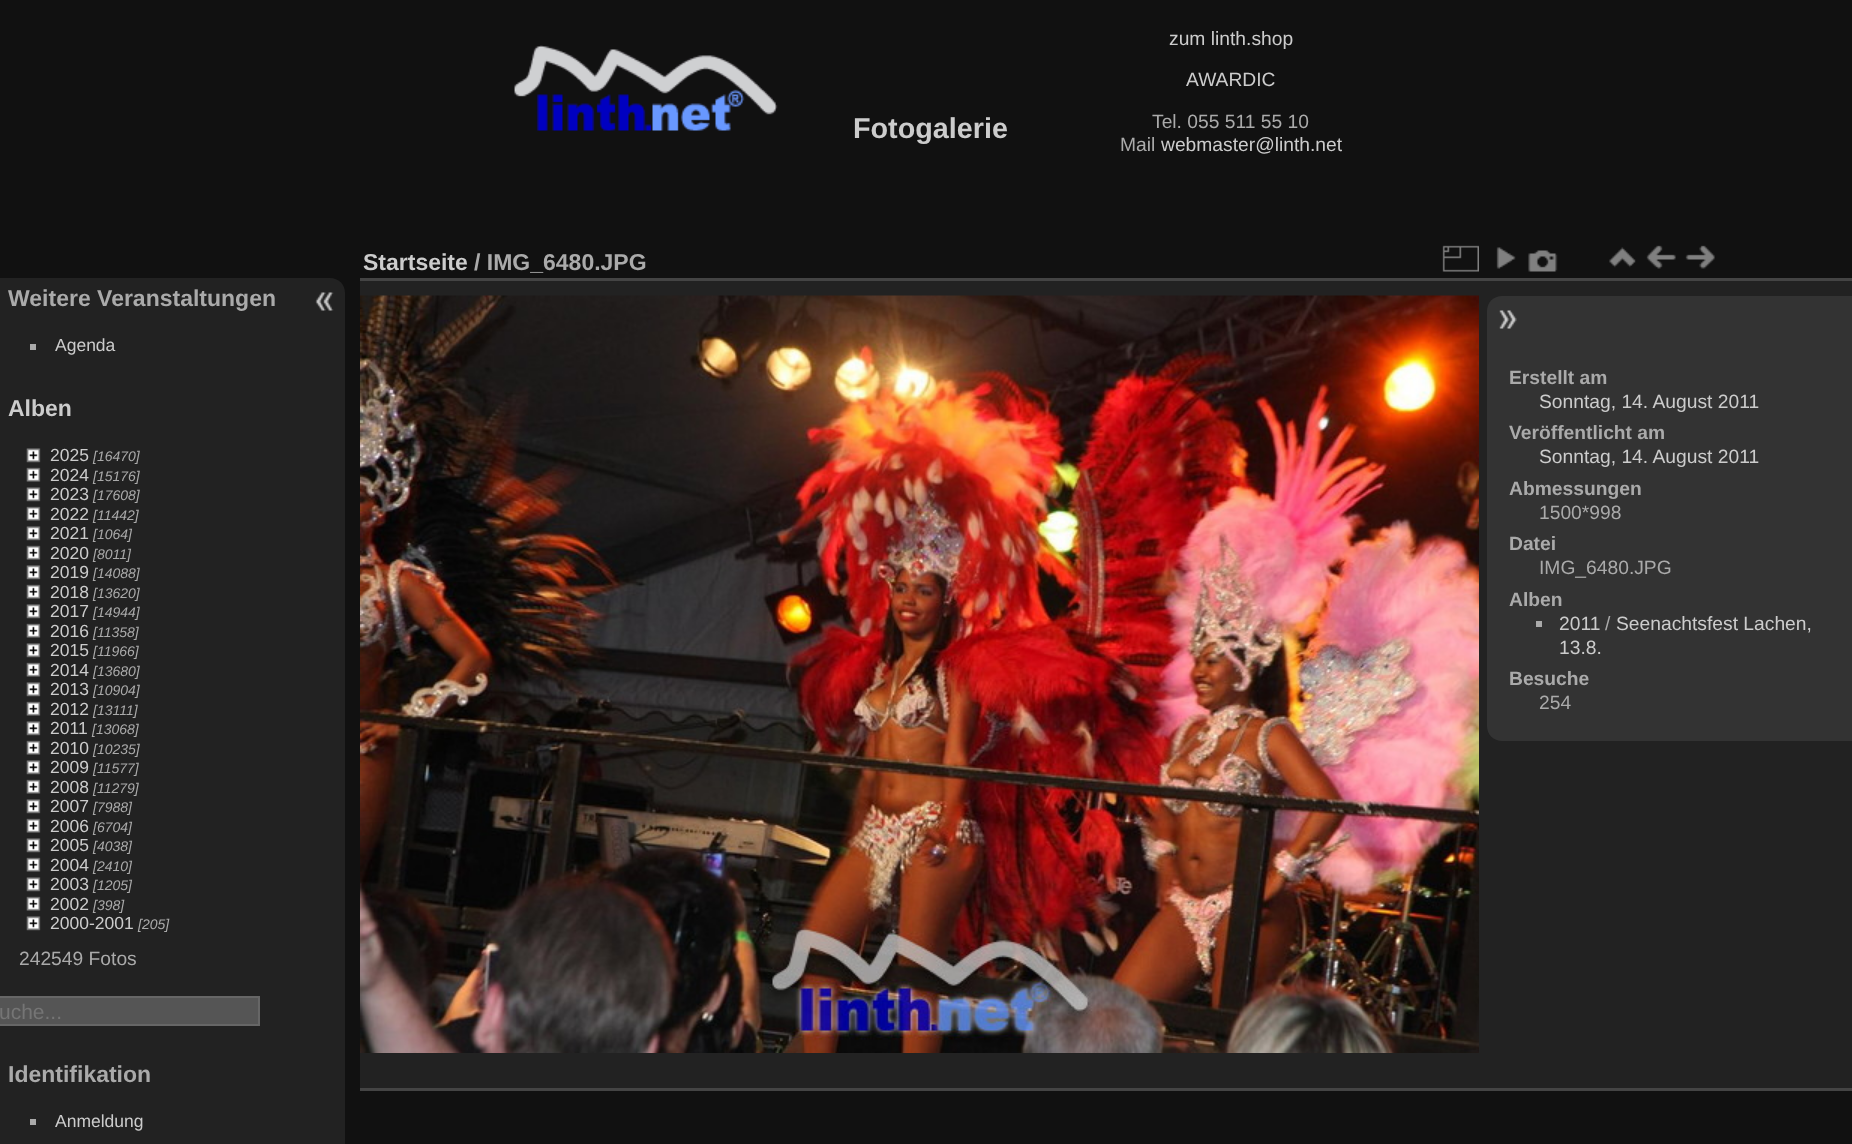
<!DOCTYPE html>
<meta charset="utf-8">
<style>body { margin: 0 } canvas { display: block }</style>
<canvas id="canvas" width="1852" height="1144"></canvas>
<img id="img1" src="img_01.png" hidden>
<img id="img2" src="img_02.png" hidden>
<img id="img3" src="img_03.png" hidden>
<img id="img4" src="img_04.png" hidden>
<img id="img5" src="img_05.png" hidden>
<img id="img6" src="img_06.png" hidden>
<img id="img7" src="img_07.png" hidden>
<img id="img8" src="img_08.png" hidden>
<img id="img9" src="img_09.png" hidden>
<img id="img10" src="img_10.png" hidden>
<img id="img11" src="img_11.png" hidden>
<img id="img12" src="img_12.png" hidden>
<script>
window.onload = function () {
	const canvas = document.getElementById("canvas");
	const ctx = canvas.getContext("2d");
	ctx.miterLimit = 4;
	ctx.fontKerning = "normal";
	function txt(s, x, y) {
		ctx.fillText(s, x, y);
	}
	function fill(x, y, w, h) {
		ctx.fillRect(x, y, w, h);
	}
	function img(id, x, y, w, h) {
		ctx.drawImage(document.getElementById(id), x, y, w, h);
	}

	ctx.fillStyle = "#111111";
	fill(0, 0, 1852, 1144);
	img("img1", 514, 45, 264, 86);
	ctx.fillStyle = "#222222";
	ctx.beginPath();
	ctx.moveTo(0, 278);
	ctx.lineTo(330, 278);
	ctx.bezierCurveTo(338.5, 278, 345, 284.5, 345, 293);
	ctx.lineTo(345, 1144);
	ctx.bezierCurveTo(345, 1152.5, 338.5, 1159, 330, 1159);
	ctx.lineTo(0, 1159);
	ctx.closePath();
	ctx.fill();
	ctx.fillStyle = "#AAAAAA";
	fill(30, 344, 6, 6);
	img("img2", 26, 448, 15, 15);
	img("img3", 26, 467, 15, 15);
	img("img2", 26, 487, 15, 15);
	img("img3", 26, 506, 15, 15);
	img("img2", 26, 526, 15, 15);
	img("img3", 26, 545, 15, 15);
	img("img2", 26, 565, 15, 15);
	img("img3", 26, 584, 15, 15);
	img("img2", 26, 604, 15, 15);
	img("img3", 26, 623, 15, 15);
	img("img2", 26, 643, 15, 15);
	img("img3", 26, 662, 15, 15);
	img("img2", 26, 682, 15, 15);
	img("img3", 26, 701, 15, 15);
	img("img2", 26, 721, 15, 15);
	img("img3", 26, 740, 15, 15);
	img("img2", 26, 760, 15, 15);
	img("img3", 26, 779, 15, 15);
	img("img2", 26, 799, 15, 15);
	img("img3", 26, 818, 15, 15);
	img("img2", 26, 838, 15, 15);
	img("img3", 26, 857, 15, 15);
	img("img2", 26, 877, 15, 15);
	img("img3", 26, 896, 15, 15);
	img("img2", 26, 916, 15, 15);
	ctx.fillStyle = "#555555";
	ctx.beginPath();
	ctx.rect(-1, 997, 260, 28);
	ctx.fill();
	ctx.strokeStyle = "#666666";
	ctx.lineWidth = 2;
	ctx.stroke();
	ctx.fillStyle = "#AAAAAA";
	fill(30, 1119, 6, 6);
	img("img4", 315, 292, 19, 19);
	ctx.fillStyle = "#222222";
	fill(360, 281, 1492, 807);
	ctx.fillStyle = "#444444";
	fill(360, 1088, 1492, 3);
	fill(360, 278, 1492, 3);
	img("img5", 1442, 245, 37, 27);
	img("img6", 1496, 247, 20, 22);
	img("img7", 1528, 250, 30, 22);
	img("img8", 1609, 247, 27, 21);
	img("img9", 1646, 245, 30, 24);
	img("img10", 1685, 245, 30, 24);
	img("img11", 360, 295, 1119, 758);
	ctx.fillStyle = "#333333";
	ctx.beginPath();
	ctx.moveTo(1502, 296);
	ctx.lineTo(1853, 296);
	ctx.lineTo(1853, 741);
	ctx.lineTo(1502, 741);
	ctx.bezierCurveTo(1493.5, 741, 1487, 734.5, 1487, 726);
	ctx.lineTo(1487, 311);
	ctx.bezierCurveTo(1487, 302.5, 1493.5, 296, 1502, 296);
	ctx.closePath();
	ctx.fill();
	img("img12", 1499, 310, 18, 19);
	ctx.fillStyle = "#AAAAAA";
	fill(1536, 621, 6, 6);
	ctx.font = "bold 28.75px Liberation Sans";
	ctx.fillStyle = "#CCCCCC";
	txt("Fotogalerie", 853, 138);
	ctx.font = "19.25px Liberation Sans";
	txt("zum linth.shop", 1169, 45);
	txt("AWARDIC", 1186, 86);
	ctx.fillStyle = "#AAAAAA";
	txt("Tel. 055 511 55 10", 1152, 128);
	txt("Mail", 1120, 151);
	ctx.fillStyle = "#CCCCCC";
	txt("webmaster@linth.net", 1161, 151);
	ctx.font = "bold 23px Liberation Sans";
	ctx.fillStyle = "#AAAAAA";
	txt("Weitere Veranstaltungen", 8, 306);
	ctx.font = "17.5px Liberation Sans";
	ctx.fillStyle = "#CCCCCC";
	txt("Agenda", 55, 351);
	ctx.font = "bold 23px Liberation Sans";
	txt("Alben", 8, 416);
	ctx.font = "17.5px Liberation Sans";
	txt("2025", 50, 461);
	ctx.font = "italic 14px Liberation Sans";
	ctx.fillStyle = "#AAAAAA";
	txt("[16470]", 93, 461);
	ctx.font = "17.5px Liberation Sans";
	ctx.fillStyle = "#CCCCCC";
	txt("2024", 50, 481);
	ctx.font = "italic 14px Liberation Sans";
	ctx.fillStyle = "#AAAAAA";
	txt("[15176]", 93, 481);
	ctx.font = "17.5px Liberation Sans";
	ctx.fillStyle = "#CCCCCC";
	txt("2023", 50, 500);
	ctx.font = "italic 14px Liberation Sans";
	ctx.fillStyle = "#AAAAAA";
	txt("[17608]", 93, 500);
	ctx.font = "17.5px Liberation Sans";
	ctx.fillStyle = "#CCCCCC";
	txt("2022", 50, 520);
	ctx.font = "italic 14px Liberation Sans";
	ctx.fillStyle = "#AAAAAA";
	txt("[11442]", 93, 520);
	ctx.font = "17.5px Liberation Sans";
	ctx.fillStyle = "#CCCCCC";
	txt("2021", 50, 539);
	ctx.font = "italic 14px Liberation Sans";
	ctx.fillStyle = "#AAAAAA";
	txt("[1064]", 93, 539);
	ctx.font = "17.5px Liberation Sans";
	ctx.fillStyle = "#CCCCCC";
	txt("2020", 50, 559);
	ctx.font = "italic 14px Liberation Sans";
	ctx.fillStyle = "#AAAAAA";
	txt("[8011]", 93, 559);
	ctx.font = "17.5px Liberation Sans";
	ctx.fillStyle = "#CCCCCC";
	txt("2019", 50, 578);
	ctx.font = "italic 14px Liberation Sans";
	ctx.fillStyle = "#AAAAAA";
	txt("[14088]", 93, 578);
	ctx.font = "17.5px Liberation Sans";
	ctx.fillStyle = "#CCCCCC";
	txt("2018", 50, 598);
	ctx.font = "italic 14px Liberation Sans";
	ctx.fillStyle = "#AAAAAA";
	txt("[13620]", 93, 598);
	ctx.font = "17.5px Liberation Sans";
	ctx.fillStyle = "#CCCCCC";
	txt("2017", 50, 617);
	ctx.font = "italic 14px Liberation Sans";
	ctx.fillStyle = "#AAAAAA";
	txt("[14944]", 93, 617);
	ctx.font = "17.5px Liberation Sans";
	ctx.fillStyle = "#CCCCCC";
	txt("2016", 50, 637);
	ctx.font = "italic 14px Liberation Sans";
	ctx.fillStyle = "#AAAAAA";
	txt("[11358]", 93, 637);
	ctx.font = "17.5px Liberation Sans";
	ctx.fillStyle = "#CCCCCC";
	txt("2015", 50, 656);
	ctx.font = "italic 14px Liberation Sans";
	ctx.fillStyle = "#AAAAAA";
	txt("[11966]", 93, 656);
	ctx.font = "17.5px Liberation Sans";
	ctx.fillStyle = "#CCCCCC";
	txt("2014", 50, 676);
	ctx.font = "italic 14px Liberation Sans";
	ctx.fillStyle = "#AAAAAA";
	txt("[13680]", 93, 676);
	ctx.font = "17.5px Liberation Sans";
	ctx.fillStyle = "#CCCCCC";
	txt("2013", 50, 695);
	ctx.font = "italic 14px Liberation Sans";
	ctx.fillStyle = "#AAAAAA";
	txt("[10904]", 93, 695);
	ctx.font = "17.5px Liberation Sans";
	ctx.fillStyle = "#CCCCCC";
	txt("2012", 50, 715);
	ctx.font = "italic 14px Liberation Sans";
	ctx.fillStyle = "#AAAAAA";
	txt("[13111]", 93, 715);
	ctx.font = "17.5px Liberation Sans";
	ctx.fillStyle = "#CCCCCC";
	txt("2011", 50, 734);
	ctx.font = "italic 14px Liberation Sans";
	ctx.fillStyle = "#AAAAAA";
	txt("[13068]", 92, 734);
	ctx.font = "17.5px Liberation Sans";
	ctx.fillStyle = "#CCCCCC";
	txt("2010", 50, 754);
	ctx.font = "italic 14px Liberation Sans";
	ctx.fillStyle = "#AAAAAA";
	txt("[10235]", 93, 754);
	ctx.font = "17.5px Liberation Sans";
	ctx.fillStyle = "#CCCCCC";
	txt("2009", 50, 773);
	ctx.font = "italic 14px Liberation Sans";
	ctx.fillStyle = "#AAAAAA";
	txt("[11577]", 93, 773);
	ctx.font = "17.5px Liberation Sans";
	ctx.fillStyle = "#CCCCCC";
	txt("2008", 50, 793);
	ctx.font = "italic 14px Liberation Sans";
	ctx.fillStyle = "#AAAAAA";
	txt("[11279]", 93, 793);
	ctx.font = "17.5px Liberation Sans";
	ctx.fillStyle = "#CCCCCC";
	txt("2007", 50, 812);
	ctx.font = "italic 14px Liberation Sans";
	ctx.fillStyle = "#AAAAAA";
	txt("[7988]", 93, 812);
	ctx.font = "17.5px Liberation Sans";
	ctx.fillStyle = "#CCCCCC";
	txt("2006", 50, 832);
	ctx.font = "italic 14px Liberation Sans";
	ctx.fillStyle = "#AAAAAA";
	txt("[6704]", 93, 832);
	ctx.font = "17.5px Liberation Sans";
	ctx.fillStyle = "#CCCCCC";
	txt("2005", 50, 851);
	ctx.font = "italic 14px Liberation Sans";
	ctx.fillStyle = "#AAAAAA";
	txt("[4038]", 93, 851);
	ctx.font = "17.5px Liberation Sans";
	ctx.fillStyle = "#CCCCCC";
	txt("2004", 50, 871);
	ctx.font = "italic 14px Liberation Sans";
	ctx.fillStyle = "#AAAAAA";
	txt("[2410]", 93, 871);
	ctx.font = "17.5px Liberation Sans";
	ctx.fillStyle = "#CCCCCC";
	txt("2003", 50, 890);
	ctx.font = "italic 14px Liberation Sans";
	ctx.fillStyle = "#AAAAAA";
	txt("[1205]", 93, 890);
	ctx.font = "17.5px Liberation Sans";
	ctx.fillStyle = "#CCCCCC";
	txt("2002", 50, 910);
	ctx.font = "italic 14px Liberation Sans";
	ctx.fillStyle = "#AAAAAA";
	txt("[398]", 93, 910);
	ctx.font = "17.5px Liberation Sans";
	ctx.fillStyle = "#CCCCCC";
	txt("2000-2001", 50, 929);
	ctx.font = "italic 14px Liberation Sans";
	ctx.fillStyle = "#AAAAAA";
	txt("[205]", 138, 929);
	ctx.font = "19.25px Liberation Sans";
	txt("242549 Fotos", 19, 965);
	ctx.font = "21px Liberation Sans";
	ctx.fillStyle = "#757575";
	txt("uche...", -1, 1019);
	ctx.font = "bold 23px Liberation Sans";
	ctx.fillStyle = "#AAAAAA";
	txt("Identifikation", 8, 1082);
	ctx.font = "17.5px Liberation Sans";
	ctx.fillStyle = "#CCCCCC";
	txt("Anmeldung", 55, 1127);
	ctx.font = "bold 23px Liberation Sans";
	txt("Startseite", 363, 270);
	ctx.fillStyle = "#AAAAAA";
	txt("/ IMG_6480.JPG", 474, 270);
	ctx.font = "bold 19.25px Liberation Sans";
	txt("Erstellt am", 1509, 384);
	ctx.font = "19.25px Liberation Sans";
	ctx.fillStyle = "#CCCCCC";
	txt("Sonntag, 14. August 2011", 1539, 408);
	ctx.font = "bold 19.25px Liberation Sans";
	ctx.fillStyle = "#AAAAAA";
	txt("Veröffentlicht am", 1509, 439);
	ctx.font = "19.25px Liberation Sans";
	ctx.fillStyle = "#CCCCCC";
	txt("Sonntag, 14. August 2011", 1539, 463);
	ctx.font = "bold 19.25px Liberation Sans";
	ctx.fillStyle = "#AAAAAA";
	txt("Abmessungen", 1509, 495);
	ctx.font = "19.25px Liberation Sans";
	txt("1500*998", 1539, 519);
	ctx.font = "bold 19.25px Liberation Sans";
	txt("Datei", 1509, 550);
	ctx.font = "19.25px Liberation Sans";
	txt("IMG_6480.JPG", 1539, 574);
	ctx.font = "bold 19.25px Liberation Sans";
	txt("Alben", 1509, 606);
	ctx.font = "19.25px Liberation Sans";
	ctx.fillStyle = "#CCCCCC";
	txt("2011", 1559, 630);
	ctx.fillStyle = "#AAAAAA";
	txt("/", 1605, 630);
	ctx.fillStyle = "#CCCCCC";
	txt("Seenachtsfest Lachen,", 1616, 630);
	txt("13.8.", 1559, 654);
	ctx.font = "bold 19.25px Liberation Sans";
	ctx.fillStyle = "#AAAAAA";
	txt("Besuche", 1509, 685);
	ctx.font = "19.25px Liberation Sans";
	txt("254", 1539, 709);
};
</script>
